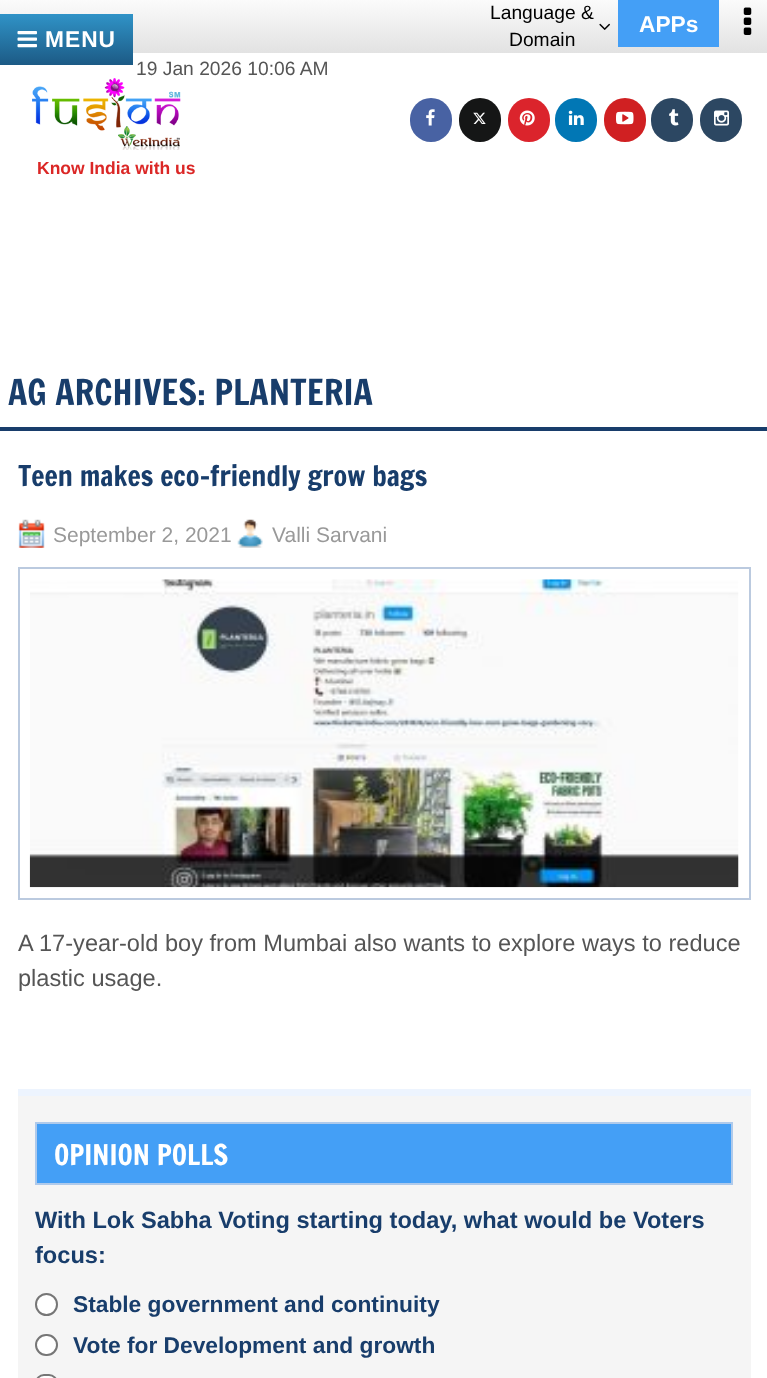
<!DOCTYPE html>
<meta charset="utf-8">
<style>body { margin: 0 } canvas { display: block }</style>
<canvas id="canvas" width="767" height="1378"></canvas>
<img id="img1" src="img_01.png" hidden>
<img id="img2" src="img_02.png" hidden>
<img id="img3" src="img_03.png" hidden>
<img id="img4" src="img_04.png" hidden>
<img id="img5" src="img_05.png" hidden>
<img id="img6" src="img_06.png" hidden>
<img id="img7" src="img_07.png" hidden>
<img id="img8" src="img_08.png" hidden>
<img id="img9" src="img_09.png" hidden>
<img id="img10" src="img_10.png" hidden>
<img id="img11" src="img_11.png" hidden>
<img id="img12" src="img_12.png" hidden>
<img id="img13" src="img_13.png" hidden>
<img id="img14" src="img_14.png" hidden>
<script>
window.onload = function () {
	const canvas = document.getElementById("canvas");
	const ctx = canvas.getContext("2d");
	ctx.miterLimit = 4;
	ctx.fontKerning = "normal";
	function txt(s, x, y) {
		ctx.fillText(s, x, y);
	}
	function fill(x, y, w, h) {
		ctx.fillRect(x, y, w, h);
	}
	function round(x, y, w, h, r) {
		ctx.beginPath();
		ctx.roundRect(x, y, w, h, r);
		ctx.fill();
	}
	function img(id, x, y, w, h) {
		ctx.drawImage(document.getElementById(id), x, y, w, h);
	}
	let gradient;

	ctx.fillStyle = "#FFFFFF";
	fill(0, 0, 767, 1378);
	gradient = ctx.createLinearGradient(384, 0, 384, 53);
	gradient.addColorStop(0, "#FBFBFB");
	gradient.addColorStop(1, "#E2E2E2");
	ctx.fillStyle = gradient;
	fill(0, 0, 767, 53);
	img("img1", 599, 23, 11, 7);
	ctx.fillStyle = "#449FF6";
	fill(618, 0, 101, 47);
	img("img2", 743, 7, 9, 28);
	gradient = ctx.createLinearGradient(67, 14, 67, 65);
	gradient.addColorStop(0, "#3093C7");
	gradient.addColorStop(1, "#1C5A85");
	ctx.fillStyle = gradient;
	fill(0, 14, 133, 51);
	img("img3", 17, 31, 20, 17);
	img("img4", 32, 78, 149, 72);
	ctx.fillStyle = "#4862A3";
	round(410, 98, 42, 44, 21);
	img("img5", 426, 109, 9, 17);
	ctx.fillStyle = "#151616";
	round(459, 98, 42, 44, 21);
	img("img6", 473, 112, 13, 12);
	ctx.fillStyle = "#DB242C";
	round(508, 98, 42, 44, 21);
	img("img7", 519, 110, 16, 16);
	ctx.fillStyle = "#0177B5";
	round(555, 98, 42, 44, 21);
	img("img8", 568, 110, 16, 15);
	ctx.fillStyle = "#D02022";
	round(604, 98, 42, 44, 21);
	img("img9", 616, 111, 18, 14);
	ctx.fillStyle = "#2C4762";
	round(651, 98, 42, 44, 21);
	img("img10", 669, 109, 10, 17);
	round(700, 98, 42, 44, 21);
	img("img11", 714, 110, 15, 16);
	ctx.fillStyle = "#183D6B";
	fill(0, 427, 767, 4);
	img("img12", 18, 519, 27, 29);
	img("img13", 237, 519, 26, 29);
	ctx.strokeStyle = "#BBCADF";
	ctx.lineWidth = 2;
	ctx.strokeRect(19, 568, 731, 331);
	img("img14", 29, 579, 710, 309);
	ctx.fillStyle = "#F5F5F5";
	fill(18, 1096, 733, 282);
	ctx.fillStyle = "#EDF4FE";
	fill(18, 1089, 733, 7);
	ctx.fillStyle = "#449FF6";
	ctx.beginPath();
	ctx.rect(36, 1123, 696, 61);
	ctx.fill();
	ctx.strokeStyle = "#AFCAEB";
	ctx.stroke();
	ctx.fillStyle = "#FFFFFF";
	ctx.beginPath();
	ctx.arc(46.5, 1304.5, 10.5, 0, Math.PI * 2);
	ctx.fill();
	ctx.strokeStyle = "#767676";
	ctx.stroke();
	ctx.beginPath();
	ctx.roundRect(36, 1335, 21, 20, 10);
	ctx.fill();
	ctx.stroke();
	ctx.beginPath();
	ctx.roundRect(36, 1375, 21, 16, 10.5);
	ctx.fill();
	ctx.stroke();
	ctx.font = "19.25px Liberation Sans";
	ctx.fillStyle = "#000000";
	txt("Language &", 490, 19);
	txt("Domain", 509, 46);
	ctx.font = "bold 22.75px Liberation Sans";
	ctx.fillStyle = "#FFFFFF";
	txt("APPs", 639, 32);
	ctx.letterSpacing = "1px";
	txt("MENU", 45, 47);
	ctx.letterSpacing = "0px";
	ctx.font = "19.25px Liberation Sans";
	ctx.fillStyle = "#555555";
	txt("19 Jan 2026 10:06 AM", 136, 75);
	ctx.font = "bold 17.5px Liberation Sans";
	ctx.fillStyle = "#DB2726";
	txt("Know India with us", 37, 174);
	ctx.font = "35px Francois One";
	ctx.fillStyle = "#183D6B";
	txt("AG ARCHIVES: PLANTERIA", 8, 405);
	ctx.font = "28px Francois One";
	txt("Teen makes eco-friendly grow bags", 18, 486);
	ctx.font = "21px Liberation Sans";
	ctx.fillStyle = "#999999";
	txt("September 2, 2021", 53, 542);
	txt("Valli Sarvani", 272, 542);
	ctx.font = "23.6px Liberation Sans";
	ctx.fillStyle = "#555555";
	txt("A 17-year-old boy from Mumbai also wants to explore ways to reduce", 18, 951);
	txt("plastic usage.", 18, 986);
	ctx.font = "28px Francois One";
	ctx.fillStyle = "#FFFFFF";
	txt("OPINION POLLS", 54, 1165);
	ctx.font = "bold 23.6px Liberation Sans";
	ctx.fillStyle = "#183D6B";
	txt("With Lok Sabha Voting starting today, what would be Voters", 35, 1228);
	txt("focus:", 35, 1263);
	ctx.font = "bold 22.75px Liberation Sans";
	txt("Stable government and continuity", 73, 1312);
	txt("Vote for Development and growth", 73, 1353);
};
</script>
